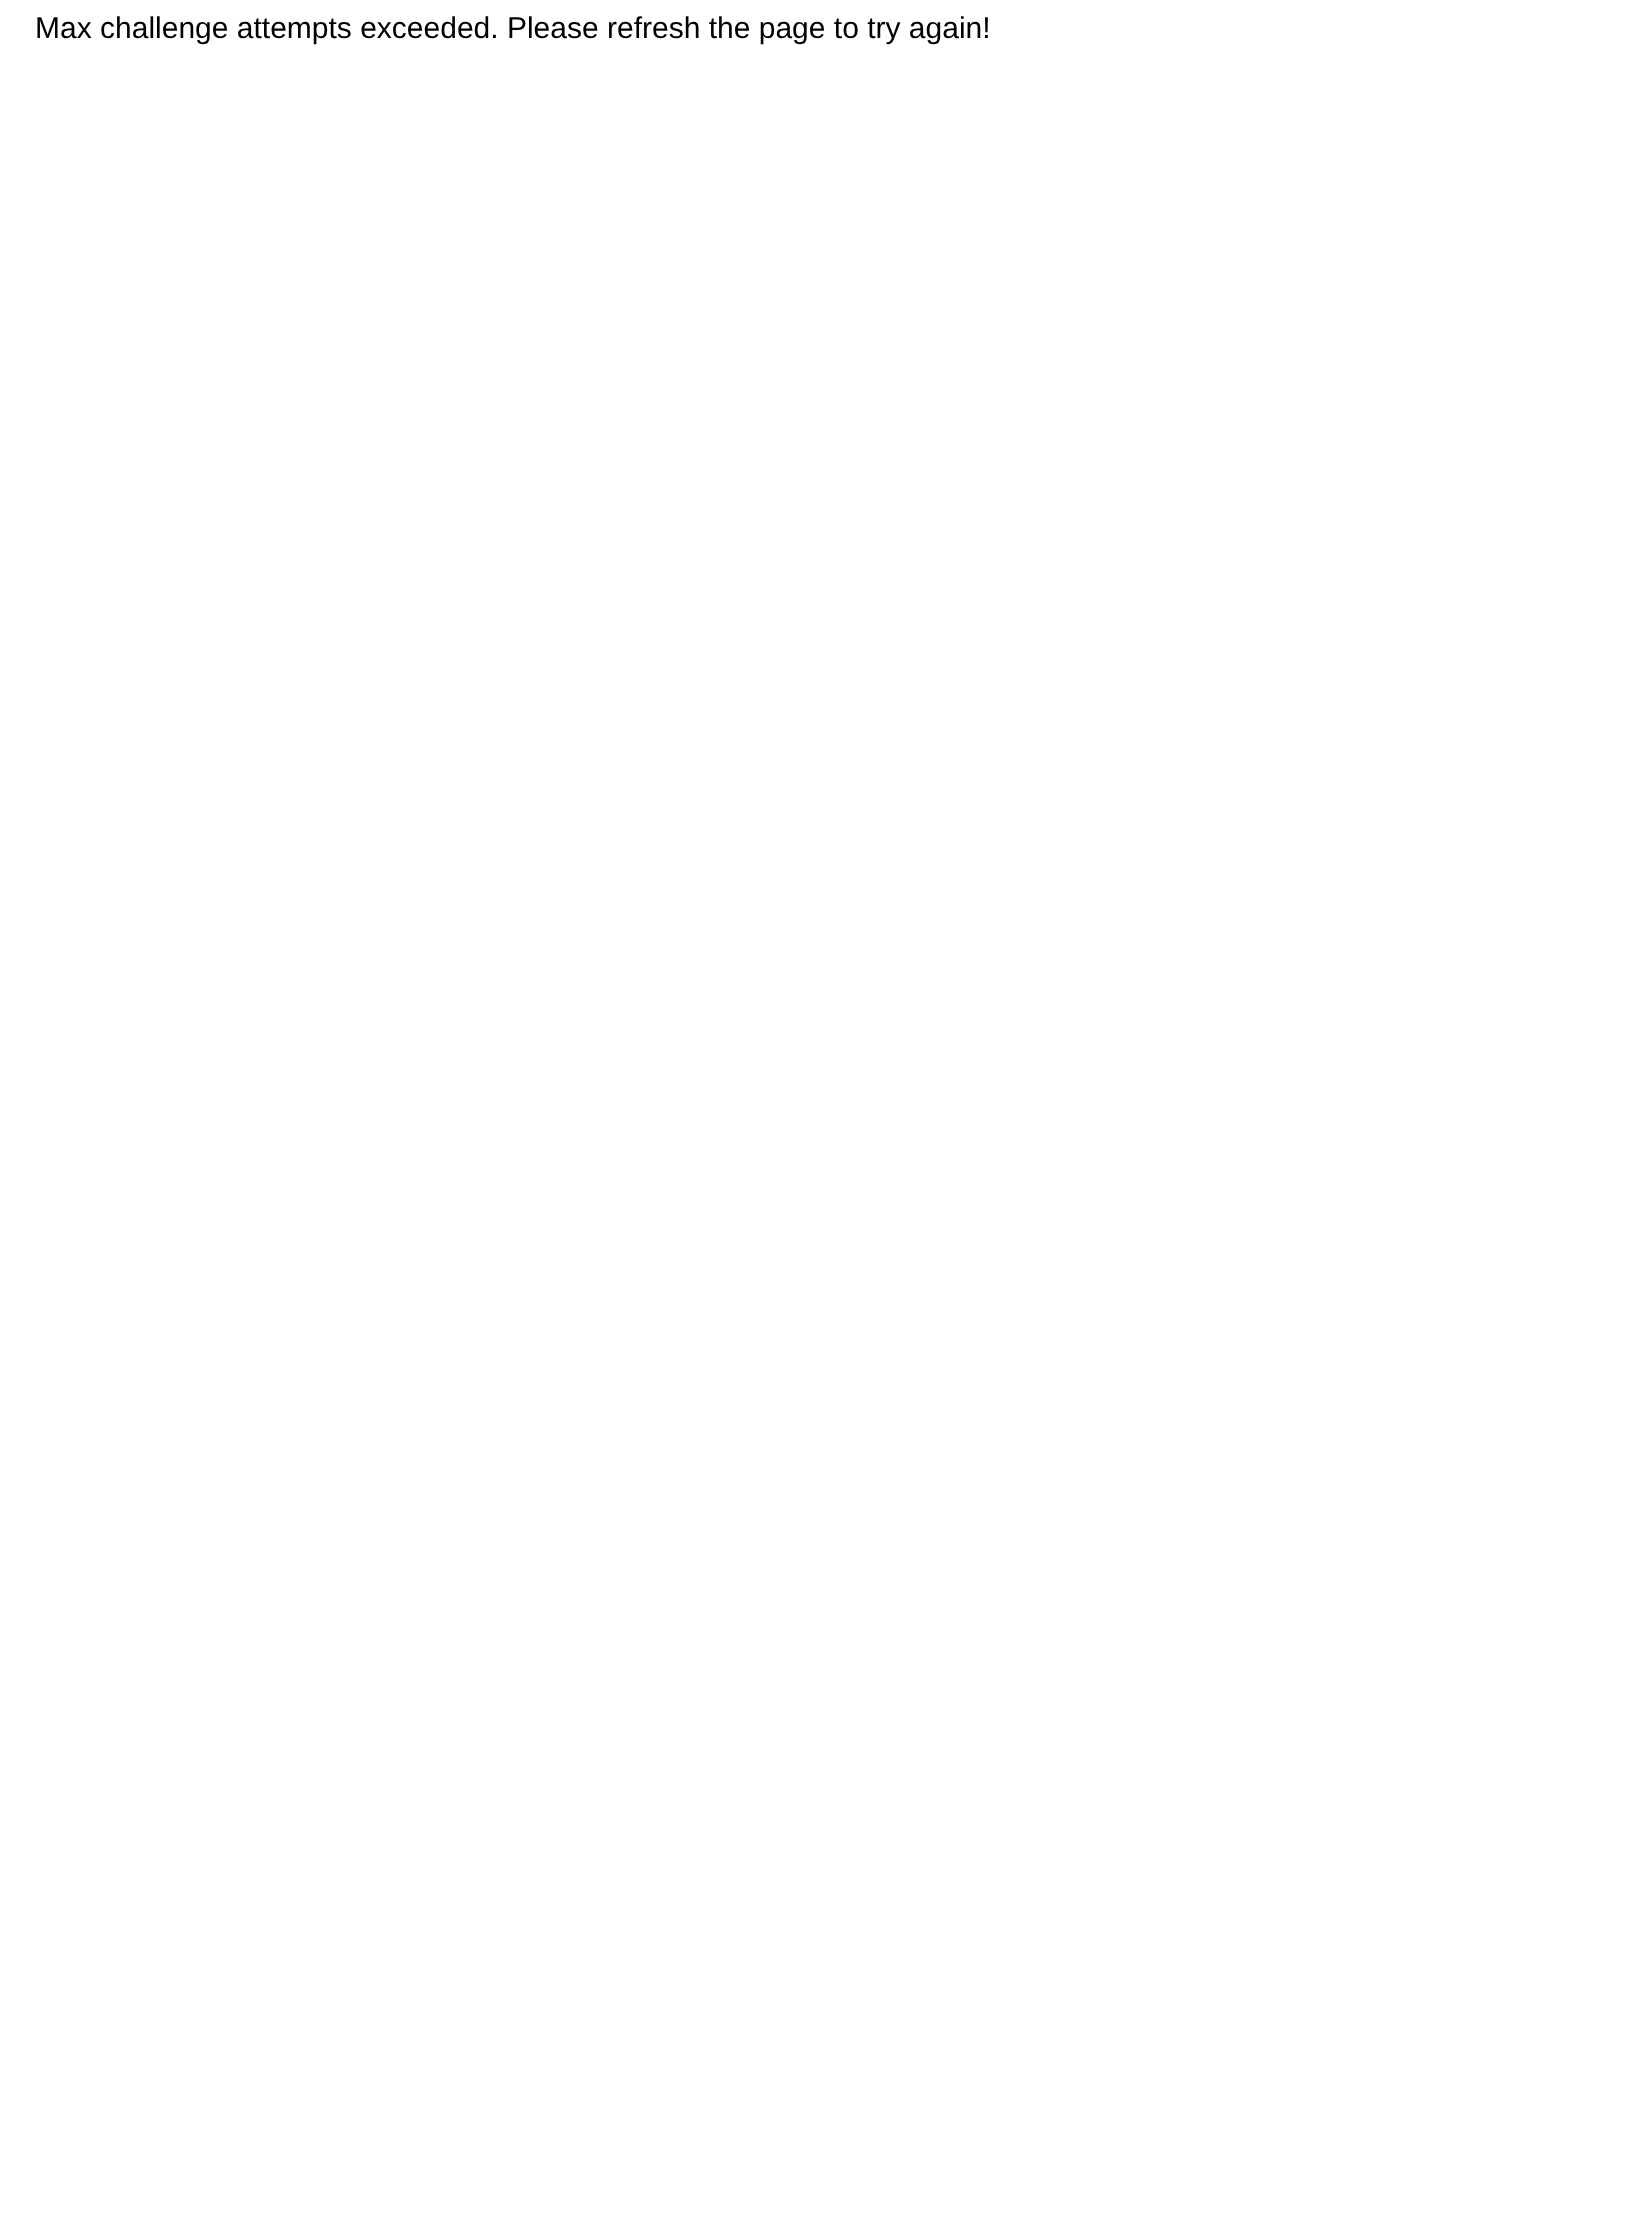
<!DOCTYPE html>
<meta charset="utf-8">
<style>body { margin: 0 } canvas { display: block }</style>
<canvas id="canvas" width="1626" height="2213"></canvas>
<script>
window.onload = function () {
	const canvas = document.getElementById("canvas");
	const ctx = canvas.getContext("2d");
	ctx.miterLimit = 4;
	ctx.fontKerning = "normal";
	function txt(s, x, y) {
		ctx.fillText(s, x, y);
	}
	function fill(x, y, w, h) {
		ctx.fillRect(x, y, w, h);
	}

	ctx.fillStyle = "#FFFFFF";
	fill(0, 0, 1626, 2213);
	ctx.font = "30px Liberation Sans";
	ctx.fillStyle = "#000000";
	txt("Max challenge attempts exceeded. Please refresh the page to try again!", 35, 38);
};
</script>
